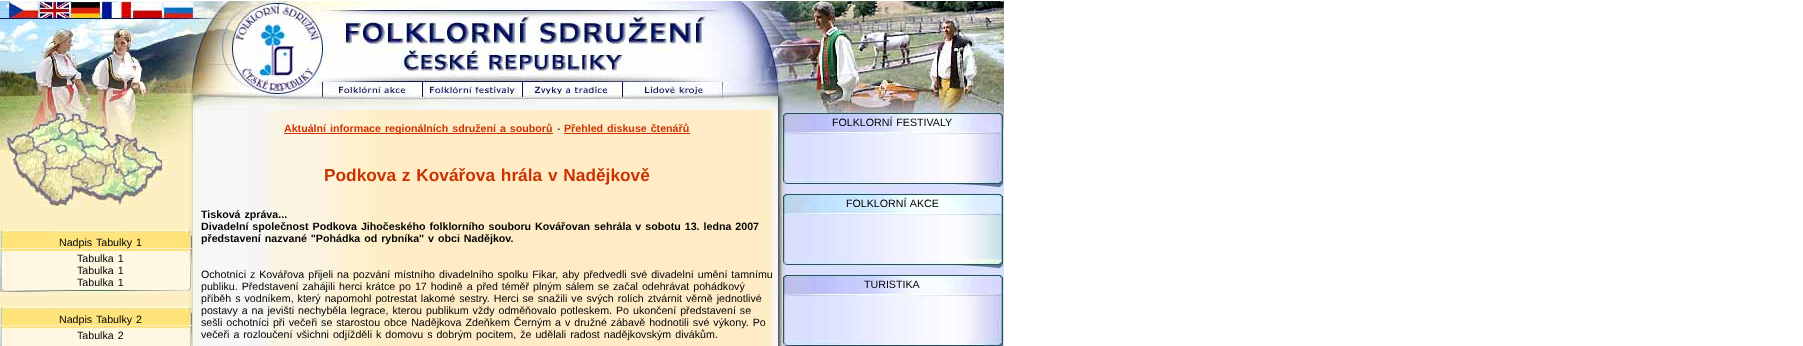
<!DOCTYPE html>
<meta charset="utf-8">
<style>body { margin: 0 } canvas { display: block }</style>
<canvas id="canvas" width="1803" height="346"></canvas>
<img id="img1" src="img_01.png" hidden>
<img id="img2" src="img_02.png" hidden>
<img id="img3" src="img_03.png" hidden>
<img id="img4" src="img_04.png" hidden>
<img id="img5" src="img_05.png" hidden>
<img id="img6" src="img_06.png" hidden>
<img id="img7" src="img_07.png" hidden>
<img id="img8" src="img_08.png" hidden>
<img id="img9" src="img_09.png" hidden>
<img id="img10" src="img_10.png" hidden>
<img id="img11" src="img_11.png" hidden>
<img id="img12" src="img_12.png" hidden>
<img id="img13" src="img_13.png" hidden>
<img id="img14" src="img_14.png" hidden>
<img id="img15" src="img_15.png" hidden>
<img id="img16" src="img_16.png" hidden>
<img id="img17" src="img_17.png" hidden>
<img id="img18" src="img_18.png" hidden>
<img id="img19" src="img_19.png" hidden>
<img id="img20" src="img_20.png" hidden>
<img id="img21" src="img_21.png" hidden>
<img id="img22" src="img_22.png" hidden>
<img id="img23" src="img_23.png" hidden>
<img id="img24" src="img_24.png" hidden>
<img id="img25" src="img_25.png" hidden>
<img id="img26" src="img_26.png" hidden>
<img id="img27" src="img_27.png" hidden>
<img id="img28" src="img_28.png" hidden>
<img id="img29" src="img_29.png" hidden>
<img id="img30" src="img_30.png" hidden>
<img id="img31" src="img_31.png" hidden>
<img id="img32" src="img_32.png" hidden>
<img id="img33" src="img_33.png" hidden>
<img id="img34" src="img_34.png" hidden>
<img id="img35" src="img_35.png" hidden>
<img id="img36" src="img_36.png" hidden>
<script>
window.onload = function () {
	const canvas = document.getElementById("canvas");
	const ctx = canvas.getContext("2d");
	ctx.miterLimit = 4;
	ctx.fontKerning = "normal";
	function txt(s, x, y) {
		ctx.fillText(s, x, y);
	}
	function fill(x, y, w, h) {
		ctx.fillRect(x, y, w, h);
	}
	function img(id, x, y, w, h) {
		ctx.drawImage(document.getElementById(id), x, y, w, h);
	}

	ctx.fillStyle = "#FFFFFF";
	fill(0, 0, 1803, 346);
	img("img1", 0, 1, 1004, 3);
	img("img2", 0, 4, 197, 17);
	img("img3", 197, 4, 583, 17);
	img("img4", 780, 4, 224, 17);
	img("img5", 0, 21, 780, 58);
	img("img6", 780, 21, 224, 89);
	img("img7", 0, 79, 322, 31);
	img("img8", 322, 79, 100, 31);
	img("img9", 422, 79, 100, 31);
	img("img10", 522, 79, 100, 31);
	img("img11", 622, 79, 100, 31);
	img("img12", 722, 79, 58, 31);
	img("img13", 0, 110, 201, 236);
	img("img14", 0, 110, 199, 97);
	img("img15", 0, 228, 193, 8);
	img("img16", 0, 236, 193, 12);
	img("img17", 0, 249, 193, 3);
	img("img18", 0, 252, 193, 36);
	img("img19", 0, 288, 193, 12);
	img("img15", 0, 305, 193, 8);
	img("img16", 0, 313, 193, 12);
	img("img17", 0, 326, 193, 3);
	img("img20", 0, 329, 193, 17);
	img("img21", 201, 110, 572, 236);
	ctx.fillStyle = "#CC3300";
	fill(284, 133, 269, 1);
	fill(564, 133, 126, 1);
	img("img22", 773, 110, 7, 236);
	img("img23", 780, 216, 1, 124);
	img("img24", 780, 110, 224, 6);
	img("img25", 780, 116, 224, 13);
	img("img26", 780, 129, 224, 6);
	img("img27", 780, 135, 224, 43);
	img("img28", 780, 178, 224, 19);
	img("img29", 780, 197, 224, 13);
	img("img30", 780, 210, 224, 6);
	img("img31", 781, 216, 223, 43);
	img("img32", 780, 259, 224, 19);
	img("img33", 781, 278, 223, 13);
	img("img34", 780, 291, 224, 6);
	img("img35", 781, 297, 223, 43);
	img("img36", 780, 340, 224, 6);
	ctx.wordSpacing = "1px";
	ctx.font = "10.67px Liberation Sans";
	ctx.fillStyle = "#000000";
	txt("Nadpis Tabulky 1", 59, 246);
	txt("Tabulka 1", 77, 262);
	txt("Tabulka 1", 77, 274);
	txt("Tabulka 1", 77, 286);
	txt("Nadpis Tabulky 2", 59, 323);
	txt("Tabulka 2", 77, 339);
	ctx.font = "bold 10.67px Liberation Sans";
	ctx.fillStyle = "#CC3300";
	txt("Aktuální informace regionálních sdružení a souborů", 284, 132);
	ctx.wordSpacing = "0px";
	ctx.font = "10.67px Liberation Sans";
	ctx.fillStyle = "#000000";
	txt("-", 557, 132);
	ctx.wordSpacing = "1px";
	ctx.font = "bold 10.67px Liberation Sans";
	ctx.fillStyle = "#CC3300";
	txt("Přehled diskuse čtenářů", 564, 132);
	ctx.font = "bold 17.3px Liberation Sans";
	txt("Podkova z Kovářova hrála v Nadějkově", 324, 181);
	ctx.font = "bold 10.67px Liberation Sans";
	ctx.fillStyle = "#000000";
	txt("Tisková zpráva...", 201, 218);
	txt("Divadelní společnost Podkova Jihočeského folklorního souboru Kovářovan sehrála v sobotu 13. ledna 2007", 201, 230);
	txt("představení nazvané \"Pohádka od rybníka\" v obci Nadějkov.", 201, 242);
	ctx.font = "10.67px Liberation Sans";
	txt("Ochotníci z Kovářova přijeli na pozvání místního divadelního spolku Fikar, aby předvedli své divadelní umění tamnímu", 201, 278);
	txt("publiku. Představení zahájili herci krátce po 17 hodině a před téměř plným sálem se začal odehrávat pohádkový", 201, 290);
	txt("příběh s vodníkem, který napomohl potrestat lakomé sestry. Herci se snažili ve svých rolích ztvárnit věrně jednotlivé", 201, 302);
	txt("postavy a na jevišti nechyběla legrace, kterou publikum vždy odměňovalo potleskem. Po ukončení představení se", 201, 314);
	txt("sešli ochotníci při večeři se starostou obce Nadějkova Zdeňkem Černým a v družné zábavě hodnotili své výkony. Po", 201, 326);
	txt("večeři a rozloučení všichni odjížděli k domovu s dobrým pocitem, že udělali radost nadějkovským divákům.", 201, 338);
	txt("FOLKLORNÍ FESTIVALY", 832, 126);
	txt("FOLKLORNÍ AKCE", 846, 207);
	ctx.wordSpacing = "0px";
	txt("TURISTIKA", 864, 288);
};
</script>
